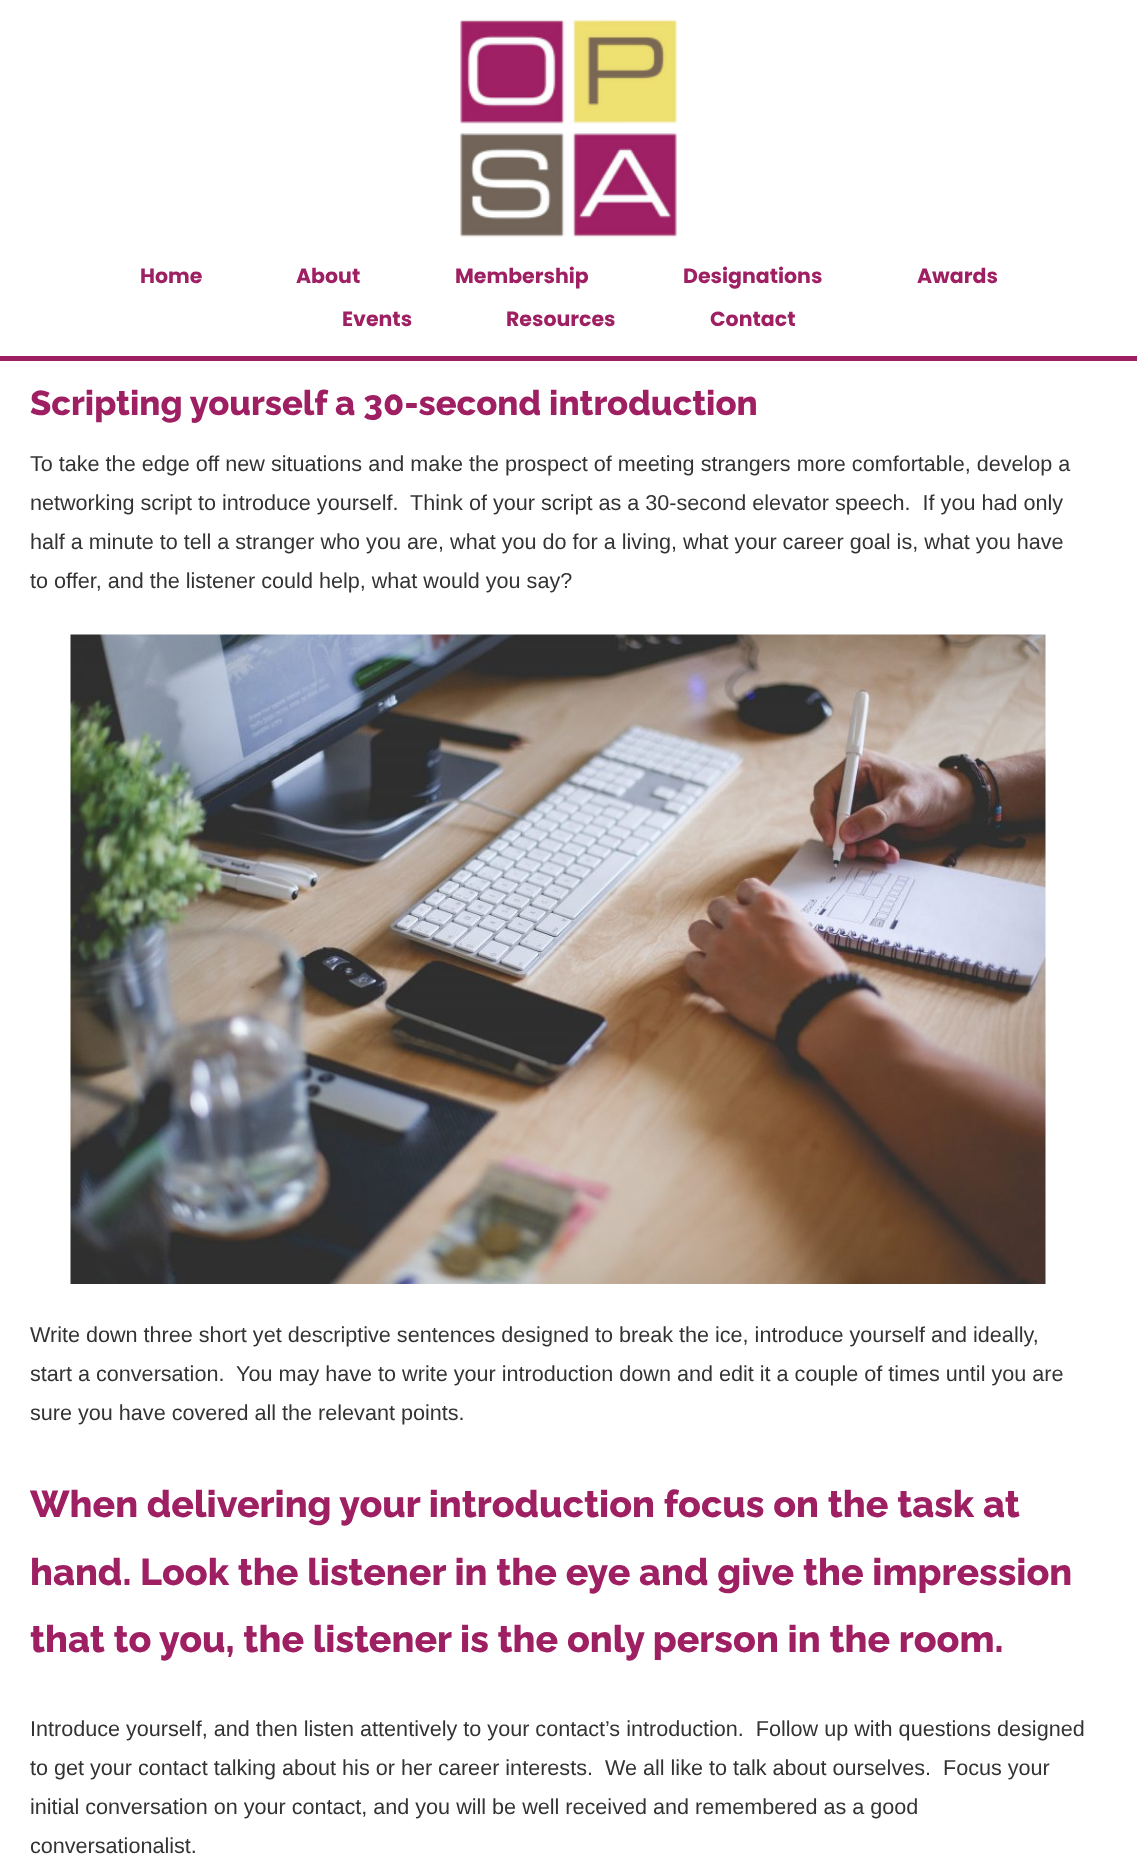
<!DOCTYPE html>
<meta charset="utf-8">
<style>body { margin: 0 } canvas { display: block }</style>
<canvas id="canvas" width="1137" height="1865"></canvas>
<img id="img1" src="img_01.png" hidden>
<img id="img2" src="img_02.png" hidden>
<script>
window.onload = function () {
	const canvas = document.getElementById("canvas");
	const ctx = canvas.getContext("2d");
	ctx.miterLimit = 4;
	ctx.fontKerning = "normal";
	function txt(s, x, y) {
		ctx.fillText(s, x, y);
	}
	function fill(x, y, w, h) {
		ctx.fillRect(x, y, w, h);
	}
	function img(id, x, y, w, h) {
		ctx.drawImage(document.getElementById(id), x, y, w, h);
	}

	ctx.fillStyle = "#FFFFFF";
	fill(0, 0, 1137, 1865);
	ctx.fillStyle = "#9F1F63";
	fill(0, 356, 1137, 5);
	img("img1", 460, 19, 217, 219);
	img("img2", 70, 634, 976, 650);
	ctx.font = "bold 20.5px Poppins";
	txt("Home", 140, 283);
	txt("About", 296, 283);
	txt("Membership", 455, 283);
	txt("Designations", 683, 283);
	txt("Awards", 917, 283);
	txt("Events", 342, 326);
	txt("Resources", 506, 326);
	txt("Contact", 710, 326);
	ctx.font = "100 34.6px Raleway";
	txt("Scripting yourself a 30-second introduction", 30, 415);
	ctx.font = "21.6px Liberation Sans";
	ctx.fillStyle = "#333333";
	txt("To take the edge off new situations and make the prospect of meeting strangers more comfortable, develop a", 30, 471);
	txt("networking script to introduce yourself.  Think of your script as a 30-second elevator speech.  If you had only", 30, 510);
	txt("half a minute to tell a stranger who you are, what you do for a living, what your career goal is, what you have", 30, 549);
	txt("to offer, and the listener could help, what would you say?", 30, 588);
	txt("Write down three short yet descriptive sentences designed to break the ice, introduce yourself and ideally,", 30, 1342);
	txt("start a conversation.  You may have to write your introduction down and edit it a couple of times until you are", 30, 1381);
	txt("sure you have covered all the relevant points.", 30, 1420);
	ctx.font = "100 37.5px Raleway";
	ctx.fillStyle = "#9F1F63";
	txt("When delivering your introduction focus on the task at", 30, 1517);
	txt("hand. Look the listener in the eye and give the impression", 30, 1585);
	txt("that to you, the listener is the only person in the room.", 30, 1652);
	ctx.font = "21.6px Liberation Sans";
	ctx.fillStyle = "#333333";
	txt("Introduce yourself, and then listen attentively to your contact’s introduction.  Follow up with questions designed", 30, 1736);
	txt("to get your contact talking about his or her career interests.  We all like to talk about ourselves.  Focus your", 30, 1775);
	txt("initial conversation on your contact, and you will be well received and remembered as a good", 30, 1814);
	txt("conversationalist.", 30, 1853);
};
</script>
